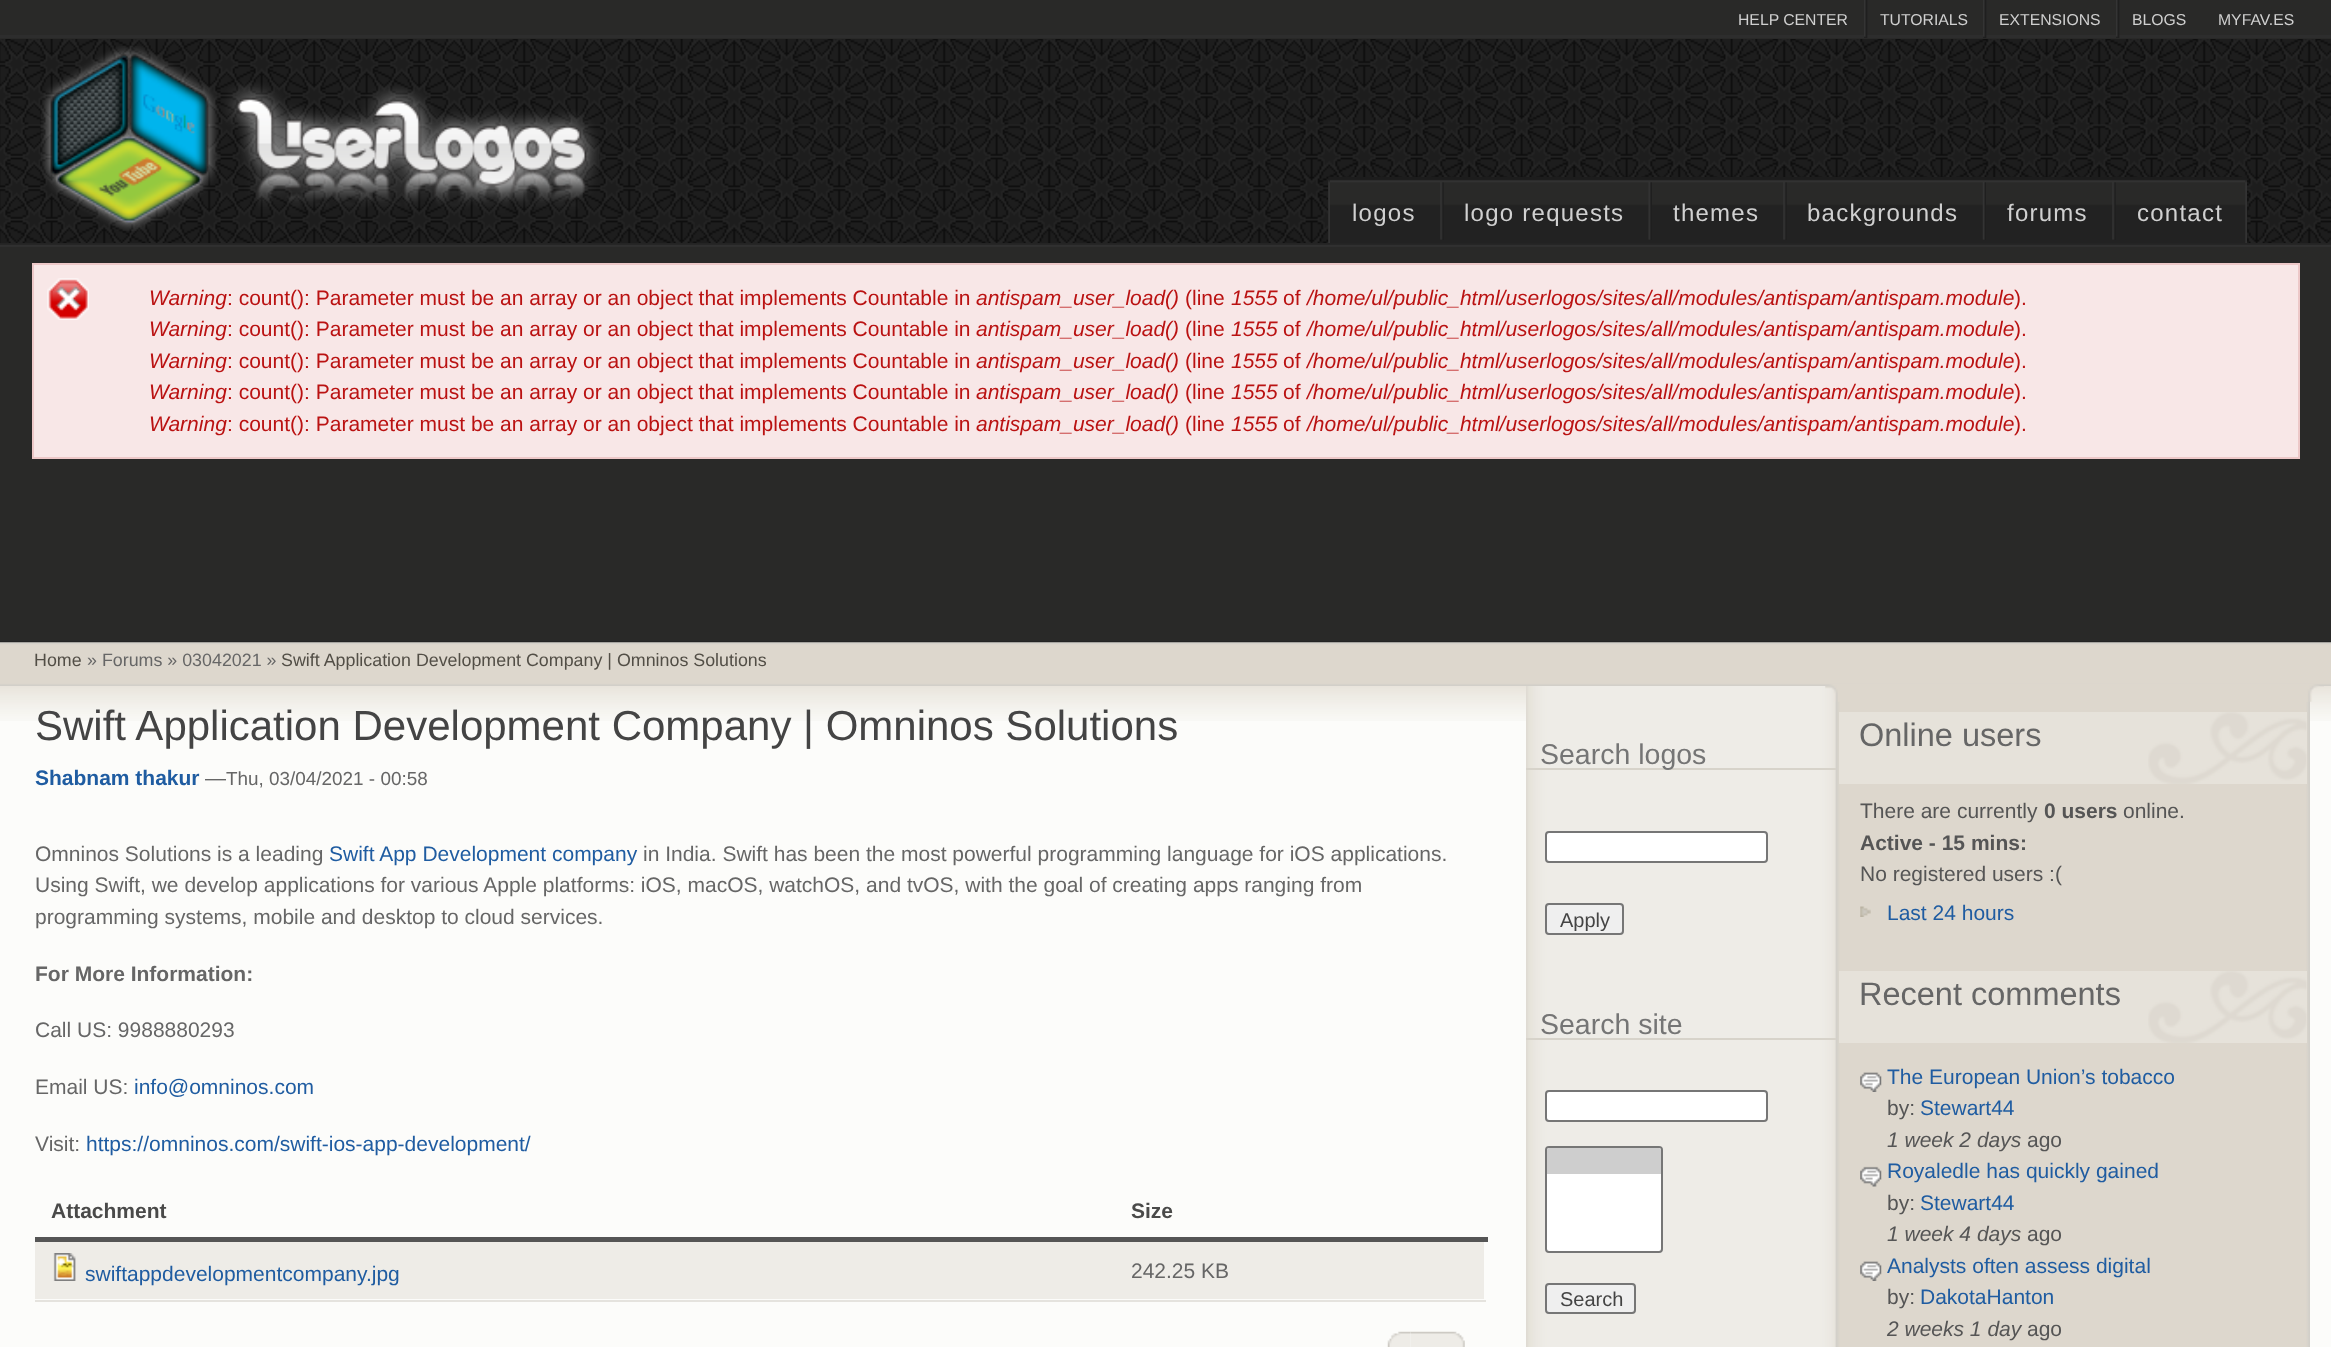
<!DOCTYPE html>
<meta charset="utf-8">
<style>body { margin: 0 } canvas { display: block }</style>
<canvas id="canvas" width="2331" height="1347"></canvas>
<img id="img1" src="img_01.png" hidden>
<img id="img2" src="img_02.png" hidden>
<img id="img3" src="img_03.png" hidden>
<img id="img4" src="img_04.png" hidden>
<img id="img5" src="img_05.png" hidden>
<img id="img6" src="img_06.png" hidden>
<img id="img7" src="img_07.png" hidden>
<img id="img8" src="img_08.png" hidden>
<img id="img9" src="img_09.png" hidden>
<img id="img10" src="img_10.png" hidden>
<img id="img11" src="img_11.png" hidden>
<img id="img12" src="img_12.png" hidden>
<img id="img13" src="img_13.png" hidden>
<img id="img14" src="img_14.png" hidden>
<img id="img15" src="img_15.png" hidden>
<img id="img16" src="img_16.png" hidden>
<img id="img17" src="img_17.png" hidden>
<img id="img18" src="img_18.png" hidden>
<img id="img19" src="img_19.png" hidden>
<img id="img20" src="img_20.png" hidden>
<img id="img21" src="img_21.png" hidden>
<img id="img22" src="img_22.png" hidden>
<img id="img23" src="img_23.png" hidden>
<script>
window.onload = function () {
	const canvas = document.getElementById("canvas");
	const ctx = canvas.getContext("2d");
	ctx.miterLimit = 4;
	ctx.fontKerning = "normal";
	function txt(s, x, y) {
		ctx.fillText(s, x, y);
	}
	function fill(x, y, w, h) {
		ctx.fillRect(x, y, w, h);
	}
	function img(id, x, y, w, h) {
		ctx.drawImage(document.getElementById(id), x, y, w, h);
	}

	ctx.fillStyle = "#FCFCFA";
	fill(0, 0, 2331, 1347);
	img("img1", 0, 39, 2331, 204);
	ctx.fillStyle = "#292928";
	fill(0, 0, 2331, 39);
	ctx.fillStyle = "#2D2D2D";
	fill(0, 35, 2331, 3);
	img("img2", 1864, 0, 4, 38);
	img("img2", 1983, 0, 4, 38);
	img("img3", 2116, 0, 4, 38);
	img("img4", 41, 46, 558, 185);
	img("img5", 1328, 177, 919, 66);
	img("img6", 1328, 180, 2, 63);
	img("img7", 1440, 182, 4, 58);
	img("img8", 1648, 182, 4, 58);
	img("img7", 1783, 182, 4, 58);
	img("img9", 1982, 182, 4, 58);
	img("img7", 2112, 182, 4, 58);
	img("img10", 2245, 180, 2, 63);
	ctx.fillStyle = "#292928";
	fill(0, 243, 2331, 398);
	img("img11", 0, 243, 2331, 4);
	ctx.fillStyle = "#232323";
	fill(0, 641, 2331, 2);
	ctx.fillStyle = "#F8E7E7";
	fill(34, 265, 2264, 192);
	img("img12", 47, 278, 42, 42);
	ctx.strokeStyle = "#EDC8C8";
	ctx.lineWidth = 2;
	ctx.strokeRect(33, 264, 2266, 194);
	img("img13", 0, 642, 2331, 44);
	img("img14", 0, 686, 2331, 35);
	img("img15", 1526, 686, 784, 661);
	img("img16", 1825, 684, 499, 18);
	ctx.fillStyle = "#555555";
	fill(35, 1237, 1453, 5);
	ctx.fillStyle = "#EEECE7";
	fill(35, 1242, 1449, 57);
	ctx.fillStyle = "#E5E3DE";
	fill(35, 1300, 1451, 2);
	img("img17", 53, 1253, 23, 28);
	img("img18", 1387, 1331, 24, 16);
	img("img19", 1410, 1331, 55, 16);
	ctx.fillStyle = "#D7D3CA";
	fill(1526, 768, 310, 2);
	ctx.fillStyle = "#FFFFFF";
	ctx.beginPath();
	ctx.roundRect(1546, 832, 221, 30, 3);
	ctx.fill();
	ctx.strokeStyle = "#767676";
	ctx.stroke();
	ctx.fillStyle = "#EFEFEF";
	ctx.beginPath();
	ctx.roundRect(1546, 904, 77, 30, 3);
	ctx.fill();
	ctx.stroke();
	ctx.fillStyle = "#D7D3CA";
	fill(1526, 1038, 310, 2);
	ctx.fillStyle = "#FFFFFF";
	ctx.beginPath();
	ctx.roundRect(1546, 1091, 221, 30, 3);
	ctx.fill();
	ctx.stroke();
	ctx.beginPath();
	ctx.roundRect(1546, 1147, 116, 105, 3);
	ctx.fill();
	ctx.stroke();
	ctx.fillStyle = "#CECECE";
	ctx.beginPath();
	ctx.roundRect(1547, 1148, 114, 26, [2, 2, 0, 0]);
	ctx.fill();
	ctx.fillStyle = "#EFEFEF";
	ctx.beginPath();
	ctx.roundRect(1546, 1284, 89, 29, 3);
	ctx.fill();
	ctx.stroke();
	ctx.fillStyle = "#E6E2DA";
	fill(1839, 712, 468, 72);
	img("img20", 2148, 712, 159, 72);
	img("img21", 1860, 906, 11, 11);
	fill(1839, 971, 468, 72);
	img("img20", 2148, 971, 159, 72);
	img("img22", 1860, 1072, 22, 20);
	img("img23", 1860, 1166, 22, 21);
	img("img22", 1860, 1261, 22, 20);
	ctx.font = "15.75px Liberation Sans";
	ctx.fillStyle = "#D0D0D0";
	txt("HELP CENTER", 1738, 25);
	txt("TUTORIALS", 1880, 25);
	txt("EXTENSIONS", 1999, 25);
	txt("BLOGS", 2132, 25);
	txt("MYFAV.ES", 2218, 25);
	ctx.letterSpacing = "1.25px";
	ctx.font = "24px Liberation Sans";
	txt("logos", 1352, 221);
	txt("logo requests", 1464, 221);
	txt("themes", 1673, 221);
	txt("backgrounds", 1807, 221);
	txt("forums", 2007, 221);
	txt("contact", 2137, 221);
	ctx.letterSpacing = "0px";
	ctx.font = "italic 21px Liberation Sans";
	ctx.fillStyle = "#BA1212";
	txt("Warning", 149, 305);
	ctx.font = "21px Liberation Sans";
	txt(": count(): Parameter must be an array or an object that implements Countable in", 227, 305);
	ctx.font = "italic 21px Liberation Sans";
	txt("antispam_user_load()", 976, 305);
	ctx.font = "21px Liberation Sans";
	txt("(line", 1185, 305);
	ctx.font = "italic 21px Liberation Sans";
	txt("1555", 1231, 305);
	ctx.font = "21px Liberation Sans";
	txt("of", 1283, 305);
	ctx.font = "italic 21px Liberation Sans";
	txt("/home/ul/public_html/userlogos/sites/all/modules/antispam/antispam.module", 1307, 305);
	ctx.font = "21px Liberation Sans";
	txt(").", 2014, 305);
	ctx.font = "italic 21px Liberation Sans";
	txt("Warning", 149, 336);
	ctx.font = "21px Liberation Sans";
	txt(": count(): Parameter must be an array or an object that implements Countable in", 227, 336);
	ctx.font = "italic 21px Liberation Sans";
	txt("antispam_user_load()", 976, 336);
	ctx.font = "21px Liberation Sans";
	txt("(line", 1185, 336);
	ctx.font = "italic 21px Liberation Sans";
	txt("1555", 1231, 336);
	ctx.font = "21px Liberation Sans";
	txt("of", 1283, 336);
	ctx.font = "italic 21px Liberation Sans";
	txt("/home/ul/public_html/userlogos/sites/all/modules/antispam/antispam.module", 1307, 336);
	ctx.font = "21px Liberation Sans";
	txt(").", 2014, 336);
	ctx.font = "italic 21px Liberation Sans";
	txt("Warning", 149, 368);
	ctx.font = "21px Liberation Sans";
	txt(": count(): Parameter must be an array or an object that implements Countable in", 227, 368);
	ctx.font = "italic 21px Liberation Sans";
	txt("antispam_user_load()", 976, 368);
	ctx.font = "21px Liberation Sans";
	txt("(line", 1185, 368);
	ctx.font = "italic 21px Liberation Sans";
	txt("1555", 1231, 368);
	ctx.font = "21px Liberation Sans";
	txt("of", 1283, 368);
	ctx.font = "italic 21px Liberation Sans";
	txt("/home/ul/public_html/userlogos/sites/all/modules/antispam/antispam.module", 1307, 368);
	ctx.font = "21px Liberation Sans";
	txt(").", 2014, 368);
	ctx.font = "italic 21px Liberation Sans";
	txt("Warning", 149, 399);
	ctx.font = "21px Liberation Sans";
	txt(": count(): Parameter must be an array or an object that implements Countable in", 227, 399);
	ctx.font = "italic 21px Liberation Sans";
	txt("antispam_user_load()", 976, 399);
	ctx.font = "21px Liberation Sans";
	txt("(line", 1185, 399);
	ctx.font = "italic 21px Liberation Sans";
	txt("1555", 1231, 399);
	ctx.font = "21px Liberation Sans";
	txt("of", 1283, 399);
	ctx.font = "italic 21px Liberation Sans";
	txt("/home/ul/public_html/userlogos/sites/all/modules/antispam/antispam.module", 1307, 399);
	ctx.font = "21px Liberation Sans";
	txt(").", 2014, 399);
	ctx.font = "italic 21px Liberation Sans";
	txt("Warning", 149, 431);
	ctx.font = "21px Liberation Sans";
	txt(": count(): Parameter must be an array or an object that implements Countable in", 227, 431);
	ctx.font = "italic 21px Liberation Sans";
	txt("antispam_user_load()", 976, 431);
	ctx.font = "21px Liberation Sans";
	txt("(line", 1185, 431);
	ctx.font = "italic 21px Liberation Sans";
	txt("1555", 1231, 431);
	ctx.font = "21px Liberation Sans";
	txt("of", 1283, 431);
	ctx.font = "italic 21px Liberation Sans";
	txt("/home/ul/public_html/userlogos/sites/all/modules/antispam/antispam.module", 1307, 431);
	ctx.font = "21px Liberation Sans";
	txt(").", 2014, 431);
	ctx.font = "17.85px Liberation Sans";
	ctx.fillStyle = "#524E46";
	txt("Home", 34, 666);
	ctx.fillStyle = "#666666";
	txt("» Forums » 03042021 »", 87, 666);
	ctx.fillStyle = "#524E46";
	txt("Swift Application Development Company | Omninos Solutions", 281, 666);
	ctx.font = "42px Liberation Sans";
	ctx.fillStyle = "#444444";
	txt("Swift Application Development Company | Omninos Solutions", 35, 740);
	ctx.font = "bold 21px Liberation Sans";
	ctx.fillStyle = "#1F5CA1";
	txt("Shabnam thakur", 35, 785);
	ctx.font = "21px Liberation Sans";
	ctx.fillStyle = "#666666";
	txt("—", 205, 785);
	ctx.font = "18.9px Liberation Sans";
	txt("Thu, 03/04/2021 - 00:58", 226, 785);
	ctx.font = "21px Liberation Sans";
	txt("Omninos Solutions is a leading", 35, 861);
	ctx.fillStyle = "#1F5CA1";
	txt("Swift App Development company", 329, 861);
	ctx.fillStyle = "#666666";
	txt("in India. Swift has been the most powerful programming language for iOS applications.", 643, 861);
	txt("Using Swift, we develop applications for various Apple platforms: iOS, macOS, watchOS, and tvOS, with the goal of creating apps ranging from", 35, 892);
	txt("programming systems, mobile and desktop to cloud services.", 35, 924);
	ctx.font = "bold 21px Liberation Sans";
	txt("For More Information:", 35, 981);
	ctx.font = "21px Liberation Sans";
	txt("Call US: 9988880293", 35, 1037);
	txt("Email US:", 35, 1094);
	ctx.fillStyle = "#1F5CA1";
	txt("info@omninos.com", 134, 1094);
	ctx.fillStyle = "#666666";
	txt("Visit:", 35, 1151);
	ctx.fillStyle = "#1F5CA1";
	txt("https://omninos.com/swift-ios-app-development/", 86, 1151);
	ctx.font = "bold 21px Liberation Sans";
	ctx.fillStyle = "#4A4A49";
	txt("Attachment", 51, 1218);
	txt("Size", 1131, 1218);
	ctx.font = "21px Liberation Sans";
	ctx.fillStyle = "#1F5CA1";
	txt("swiftappdevelopmentcompany.jpg", 85, 1281);
	ctx.fillStyle = "#666666";
	txt("242.25 KB", 1131, 1278);
	ctx.font = "28.5px Liberation Sans";
	ctx.fillStyle = "#757575";
	txt("Search logos", 1540, 764);
	ctx.save();
	ctx.beginPath();
	ctx.rect(1549, 907, 72, 24);
	ctx.clip();
	ctx.font = "20px Liberation Sans";
	ctx.fillStyle = "#444444";
	txt("Apply", 1560, 927);
	ctx.restore();
	txt("Search site", 1540, 1034);
	ctx.font = "20px Liberation Sans";
	ctx.fillStyle = "#444444";
	txt("Search", 1560, 1306);
	ctx.font = "32.5px Liberation Sans";
	ctx.fillStyle = "#666666";
	txt("Online users", 1859, 746);
	ctx.font = "21px Liberation Sans";
	ctx.fillStyle = "#555555";
	txt("There are currently", 1860, 818);
	ctx.font = "bold 21px Liberation Sans";
	txt("0 users", 2044, 818);
	ctx.font = "21px Liberation Sans";
	txt("online.", 2123, 818);
	ctx.font = "bold 21px Liberation Sans";
	txt("Active - 15 mins:", 1860, 850);
	ctx.font = "21px Liberation Sans";
	txt("No registered users :(", 1860, 881);
	ctx.fillStyle = "#1F5CA1";
	txt("Last 24 hours", 1887, 920);
	ctx.font = "32.5px Liberation Sans";
	ctx.fillStyle = "#666666";
	txt("Recent comments", 1859, 1005);
	ctx.font = "21px Liberation Sans";
	ctx.fillStyle = "#1F5CA1";
	txt("The European Union’s tobacco", 1887, 1084);
	ctx.fillStyle = "#555555";
	txt("by:", 1887, 1115);
	ctx.fillStyle = "#1F5CA1";
	txt("Stewart44", 1920, 1115);
	ctx.font = "italic 21px Liberation Sans";
	ctx.fillStyle = "#555555";
	txt("1 week 2 days", 1887, 1147);
	ctx.font = "21px Liberation Sans";
	txt("ago", 2027, 1147);
	ctx.fillStyle = "#1F5CA1";
	txt("Royaledle has quickly gained", 1887, 1178);
	ctx.fillStyle = "#555555";
	txt("by:", 1887, 1210);
	ctx.fillStyle = "#1F5CA1";
	txt("Stewart44", 1920, 1210);
	ctx.font = "italic 21px Liberation Sans";
	ctx.fillStyle = "#555555";
	txt("1 week 4 days", 1887, 1241);
	ctx.font = "21px Liberation Sans";
	txt("ago", 2027, 1241);
	ctx.fillStyle = "#1F5CA1";
	txt("Analysts often assess digital", 1887, 1273);
	ctx.fillStyle = "#555555";
	txt("by:", 1887, 1304);
	ctx.fillStyle = "#1F5CA1";
	txt("DakotaHanton", 1920, 1304);
	ctx.font = "italic 21px Liberation Sans";
	ctx.fillStyle = "#555555";
	txt("2 weeks 1 day", 1887, 1336);
	ctx.font = "21px Liberation Sans";
	txt("ago", 2027, 1336);
};
</script>
